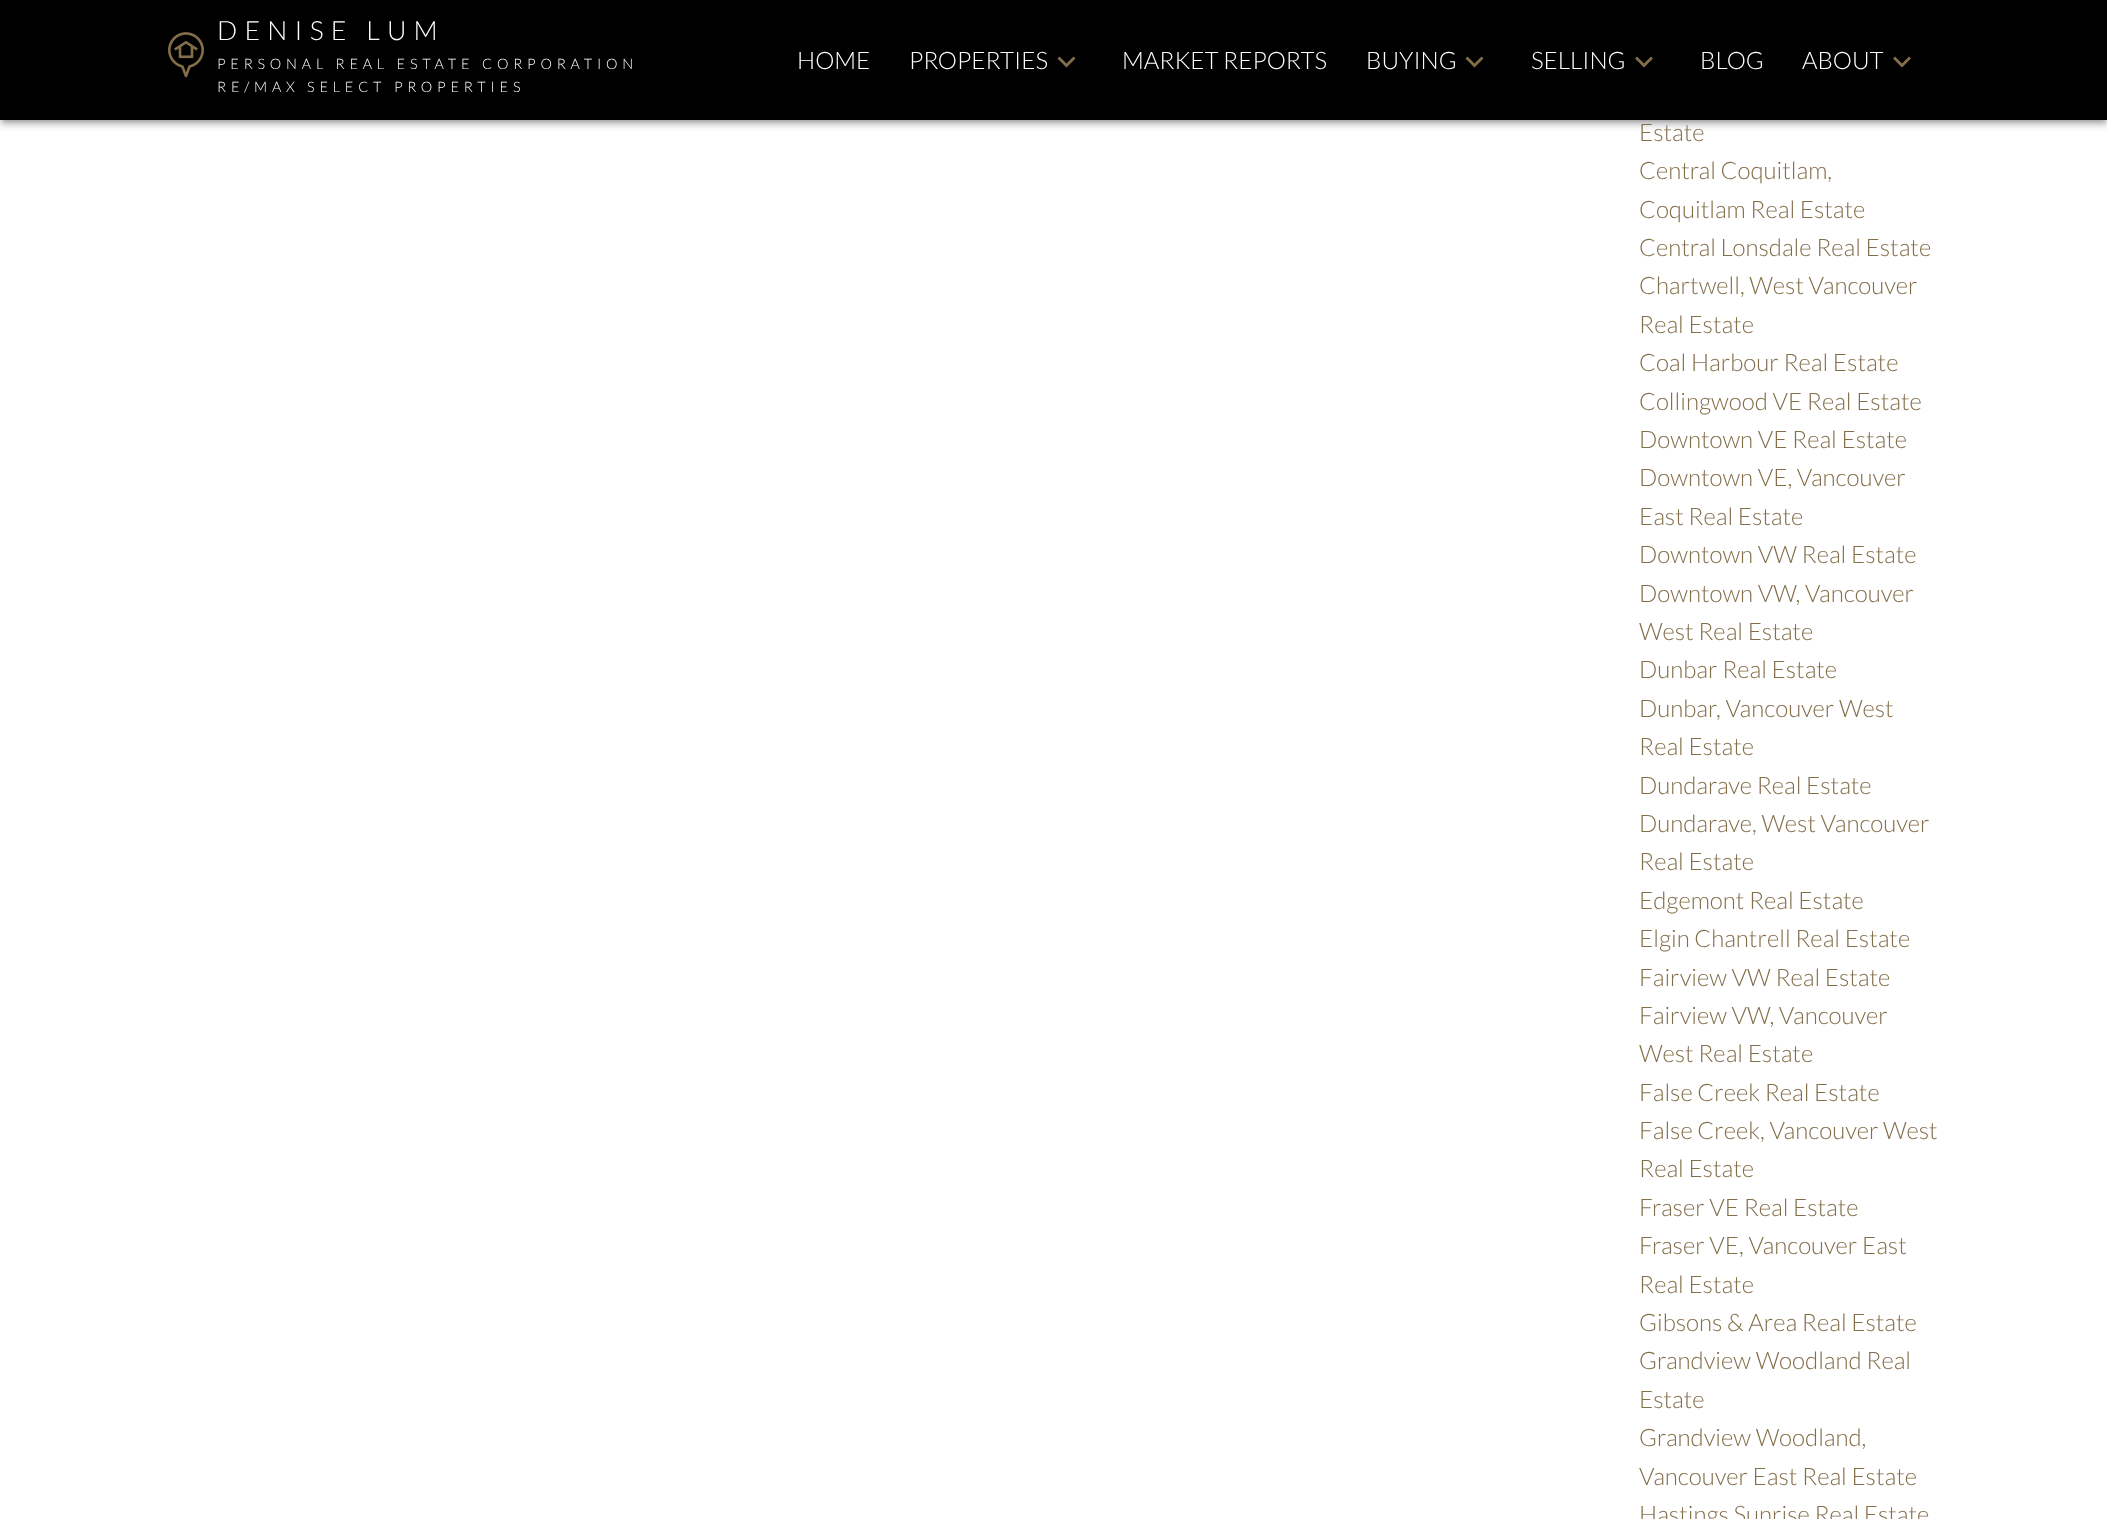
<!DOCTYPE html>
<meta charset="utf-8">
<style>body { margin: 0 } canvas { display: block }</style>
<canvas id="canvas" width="2107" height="1519"></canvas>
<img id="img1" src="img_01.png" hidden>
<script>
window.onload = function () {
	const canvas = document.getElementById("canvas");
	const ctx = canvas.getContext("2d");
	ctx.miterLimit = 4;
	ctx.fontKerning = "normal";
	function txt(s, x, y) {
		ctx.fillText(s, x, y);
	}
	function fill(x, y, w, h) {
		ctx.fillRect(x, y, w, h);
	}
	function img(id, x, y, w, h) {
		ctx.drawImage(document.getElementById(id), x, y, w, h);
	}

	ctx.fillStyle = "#FFFFFF";
	fill(0, 0, 2107, 1519);
	ctx.fillStyle = "rgba(0, 0, 0, 0.12)";
	ctx.filter = "blur(6px)";
	ctx.beginPath();
	ctx.rect(0, 2, 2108, 120);
	ctx.fill();
	ctx.filter = "none";
	ctx.fillStyle = "rgba(0, 0, 0, 0.14)";
	ctx.filter = "blur(3px)";
	ctx.beginPath();
	ctx.rect(0, 5, 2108, 120);
	ctx.fill();
	ctx.filter = "none";
	ctx.fillStyle = "rgba(0, 0, 0, 0.2)";
	ctx.filter = "blur(2px)";
	ctx.beginPath();
	ctx.rect(3, 8, 2102, 114);
	ctx.fill();
	ctx.filter = "none";
	ctx.fillStyle = "#000000";
	fill(0, 0, 2107, 120);
	img("img1", 168, 32, 36, 46);
	ctx.fillStyle = "#836E4A";
	ctx.beginPath();
	ctx.moveTo(1073.5, 56.5);
	ctx.lineTo(1066.5, 63.5);
	ctx.lineTo(1059.5, 56.5);
	ctx.lineTo(1057.5, 58.5);
	ctx.lineTo(1066.5, 67.5);
	ctx.lineTo(1075.5, 58.5);
	ctx.closePath();
	ctx.fill();
	ctx.beginPath();
	ctx.moveTo(1481.5, 56.5);
	ctx.lineTo(1474.5, 63.5);
	ctx.lineTo(1467.5, 56.5);
	ctx.lineTo(1465.5, 58.5);
	ctx.lineTo(1474.5, 67.5);
	ctx.lineTo(1483.5, 58.5);
	ctx.closePath();
	ctx.fill();
	ctx.beginPath();
	ctx.moveTo(1651, 56.5);
	ctx.lineTo(1644, 63.5);
	ctx.lineTo(1637, 56.5);
	ctx.lineTo(1635, 58.5);
	ctx.lineTo(1644, 67.5);
	ctx.lineTo(1653, 58.5);
	ctx.closePath();
	ctx.fill();
	ctx.beginPath();
	ctx.moveTo(1909, 56.5);
	ctx.lineTo(1902, 63.5);
	ctx.lineTo(1895, 56.5);
	ctx.lineTo(1893, 58.5);
	ctx.lineTo(1902, 67.5);
	ctx.lineTo(1911, 58.5);
	ctx.closePath();
	ctx.fill();
	ctx.letterSpacing = "7.25px";
	ctx.font = "300 26.5px Lato";
	ctx.fillStyle = "#FFFFFF";
	txt("DENISE LUM", 217, 40);
	ctx.letterSpacing = "4.8px";
	ctx.font = "300 14.4px Lato";
	txt("PERSONAL REAL ESTATE CORPORATION", 217, 69);
	txt("RE/MAX SELECT PROPERTIES", 217, 92);
	ctx.letterSpacing = "0px";
	ctx.font = "300 24px Lato";
	txt("HOME", 797, 69);
	txt("PROPERTIES", 909, 69);
	txt("MARKET REPORTS", 1122, 69);
	txt("BUYING", 1366, 69);
	txt("SELLING", 1531, 69);
	txt("BLOG", 1700, 69);
	txt("ABOUT", 1802, 69);
	ctx.fillStyle = "#836E4A";
	txt("Estate", 1639, 141);
	txt("Central Coquitlam,", 1639, 179);
	txt("Coquitlam Real Estate", 1639, 218);
	txt("Central Lonsdale Real Estate", 1639, 256);
	txt("Chartwell, West Vancouver", 1639, 294);
	txt("Real Estate", 1639, 333);
	txt("Coal Harbour Real Estate", 1639, 371);
	txt("Collingwood VE Real Estate", 1639, 410);
	txt("Downtown VE Real Estate", 1639, 448);
	txt("Downtown VE, Vancouver", 1639, 486);
	txt("East Real Estate", 1639, 525);
	txt("Downtown VW Real Estate", 1639, 563);
	txt("Downtown VW, Vancouver", 1639, 602);
	txt("West Real Estate", 1639, 640);
	txt("Dunbar Real Estate", 1639, 678);
	txt("Dunbar, Vancouver West", 1639, 717);
	txt("Real Estate", 1639, 755);
	txt("Dundarave Real Estate", 1639, 794);
	txt("Dundarave, West Vancouver", 1639, 832);
	txt("Real Estate", 1639, 870);
	txt("Edgemont Real Estate", 1639, 909);
	txt("Elgin Chantrell Real Estate", 1639, 947);
	txt("Fairview VW Real Estate", 1639, 986);
	txt("Fairview VW, Vancouver", 1639, 1024);
	txt("West Real Estate", 1639, 1062);
	txt("False Creek Real Estate", 1639, 1101);
	txt("False Creek, Vancouver West", 1639, 1139);
	txt("Real Estate", 1639, 1177);
	txt("Fraser VE Real Estate", 1639, 1216);
	txt("Fraser VE, Vancouver East", 1639, 1254);
	txt("Real Estate", 1639, 1293);
	txt("Gibsons & Area Real Estate", 1639, 1331);
	txt("Grandview Woodland Real", 1639, 1369);
	txt("Estate", 1639, 1408);
	txt("Grandview Woodland,", 1639, 1446);
	txt("Vancouver East Real Estate", 1639, 1485);
	txt("Hastings Sunrise Real Estate", 1639, 1523);
};
</script>
